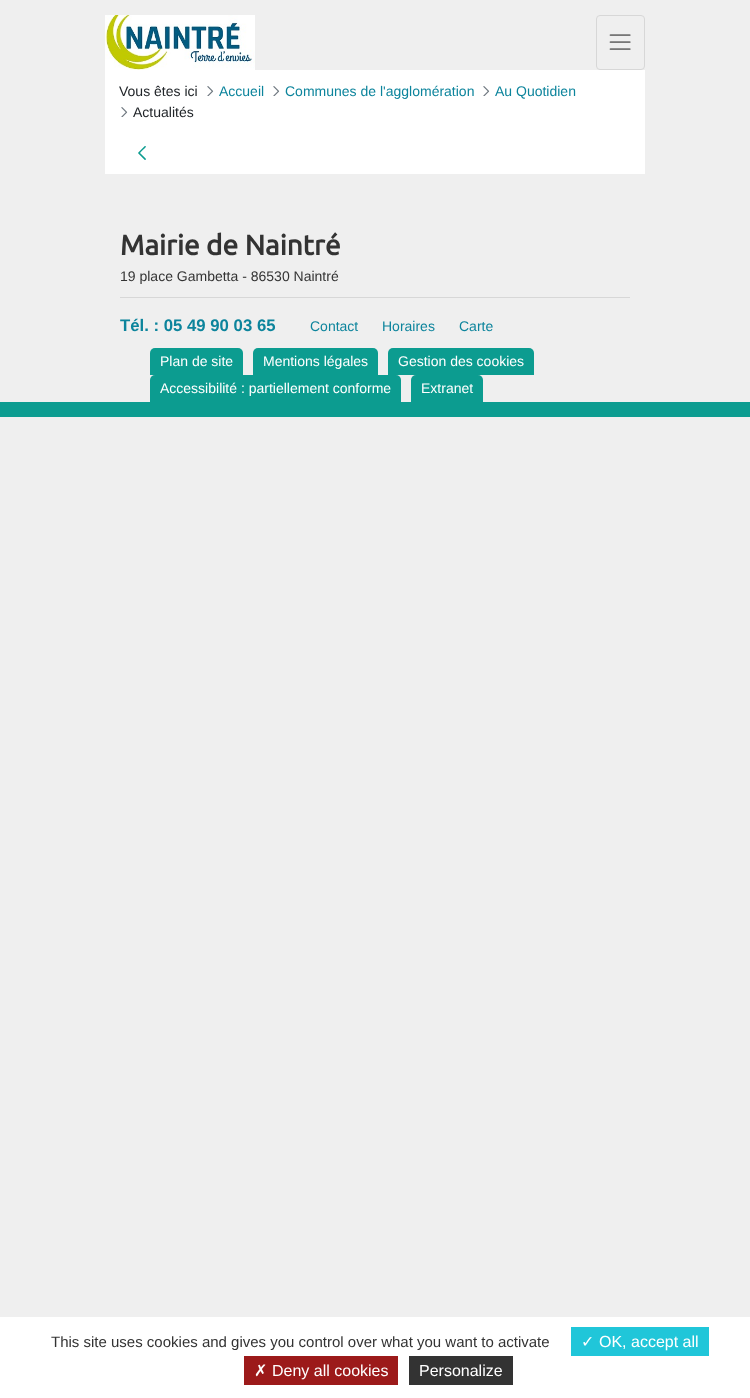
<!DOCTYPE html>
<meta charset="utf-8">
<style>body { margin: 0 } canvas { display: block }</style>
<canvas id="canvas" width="750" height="1398"></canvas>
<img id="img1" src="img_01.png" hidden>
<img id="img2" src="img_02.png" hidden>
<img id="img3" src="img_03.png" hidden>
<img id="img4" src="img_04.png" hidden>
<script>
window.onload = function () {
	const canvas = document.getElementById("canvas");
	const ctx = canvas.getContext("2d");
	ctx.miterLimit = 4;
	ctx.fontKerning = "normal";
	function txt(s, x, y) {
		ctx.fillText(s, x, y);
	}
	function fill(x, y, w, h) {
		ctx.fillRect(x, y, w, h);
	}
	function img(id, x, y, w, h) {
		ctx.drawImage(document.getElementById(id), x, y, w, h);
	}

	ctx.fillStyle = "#EFEFEF";
	fill(0, 0, 750, 1398);
	img("img1", 105, 15, 150, 55);
	ctx.beginPath();
	ctx.roundRect(596.5, 15.5, 48, 54, 3.5);
	ctx.strokeStyle = "#D7D7D7";
	ctx.stroke();
	img("img2", 609, 34, 22, 16);
	ctx.fillStyle = "#FFFFFF";
	fill(105, 70, 540, 104);
	img("img3", 207, 86, 7, 10);
	img("img3", 273, 86, 7, 10);
	img("img3", 483, 86, 7, 10);
	img("img3", 121, 107, 7, 10);
	img("img4", 138, 146, 8, 14);
	ctx.fillStyle = "#0C9C90";
	fill(0, 402, 750, 15);
	ctx.fillStyle = "#D7D7D7";
	fill(120, 297, 510, 1);
	ctx.fillStyle = "#0C9C90";
	ctx.beginPath();
	ctx.roundRect(150, 348, 93, 27, [5, 5, 0, 0]);
	ctx.fill();
	ctx.beginPath();
	ctx.roundRect(253, 348, 125, 27, [5, 5, 0, 0]);
	ctx.fill();
	ctx.beginPath();
	ctx.roundRect(388, 348, 146, 27, [5, 5, 0, 0]);
	ctx.fill();
	ctx.beginPath();
	ctx.roundRect(150, 375, 251, 27, [5, 5, 0, 0]);
	ctx.fill();
	ctx.beginPath();
	ctx.roundRect(411, 375, 72, 27, [5, 5, 0, 0]);
	ctx.fill();
	ctx.fillStyle = "#FFFFFF";
	fill(0, 1317, 750, 81);
	ctx.fillStyle = "#20C6D9";
	fill(571, 1327, 138, 29);
	ctx.fillStyle = "#9C1A1A";
	fill(244, 1356, 154, 29);
	ctx.fillStyle = "#333333";
	fill(409, 1356, 104, 29);
	ctx.font = "14px Liberation Sans";
	ctx.fillStyle = "#212529";
	txt("Vous êtes ici", 119, 96);
	ctx.fillStyle = "#0C849C";
	txt("Accueil", 219, 96);
	txt("Communes de l'agglomération", 285, 96);
	txt("Au Quotidien", 495, 96);
	ctx.fillStyle = "#212529";
	txt("Actualités", 133, 117);
	ctx.font = "bold 28px Ubuntu";
	ctx.fillStyle = "#333333";
	txt("Mairie de Naintré", 120, 255);
	ctx.font = "14px Liberation Sans";
	txt("19 place Gambetta - 86530 Naintré", 120, 281);
	ctx.font = "bold 16.75px Liberation Sans";
	ctx.fillStyle = "#0C849C";
	txt("Tél. : 05 49 90 03 65", 120, 331);
	ctx.font = "14px Liberation Sans";
	txt("Contact", 310, 331);
	txt("Horaires", 382, 331);
	txt("Carte", 459, 331);
	ctx.fillStyle = "#FFFFFF";
	txt("Plan de site", 160, 366);
	txt("Mentions légales", 263, 366);
	txt("Gestion des cookies", 398, 366);
	txt("Accessibilité : partiellement conforme", 160, 393);
	txt("Extranet", 421, 393);
	ctx.font = "15px Liberation Sans";
	ctx.fillStyle = "#333333";
	txt("This site uses cookies and gives you control over what you want to activate", 51, 1347);
	ctx.font = "16px DejaVu Sans";
	ctx.fillStyle = "#FFFFFF";
	txt("✓", 581, 1347);
	ctx.font = "16px Liberation Sans";
	txt("OK, accept all", 599, 1347);
	ctx.font = "16px DejaVu Sans";
	txt("✗", 254, 1376);
	ctx.font = "16px Liberation Sans";
	txt("Deny all cookies", 272, 1376);
	txt("Personalize", 419, 1376);
};
</script>
